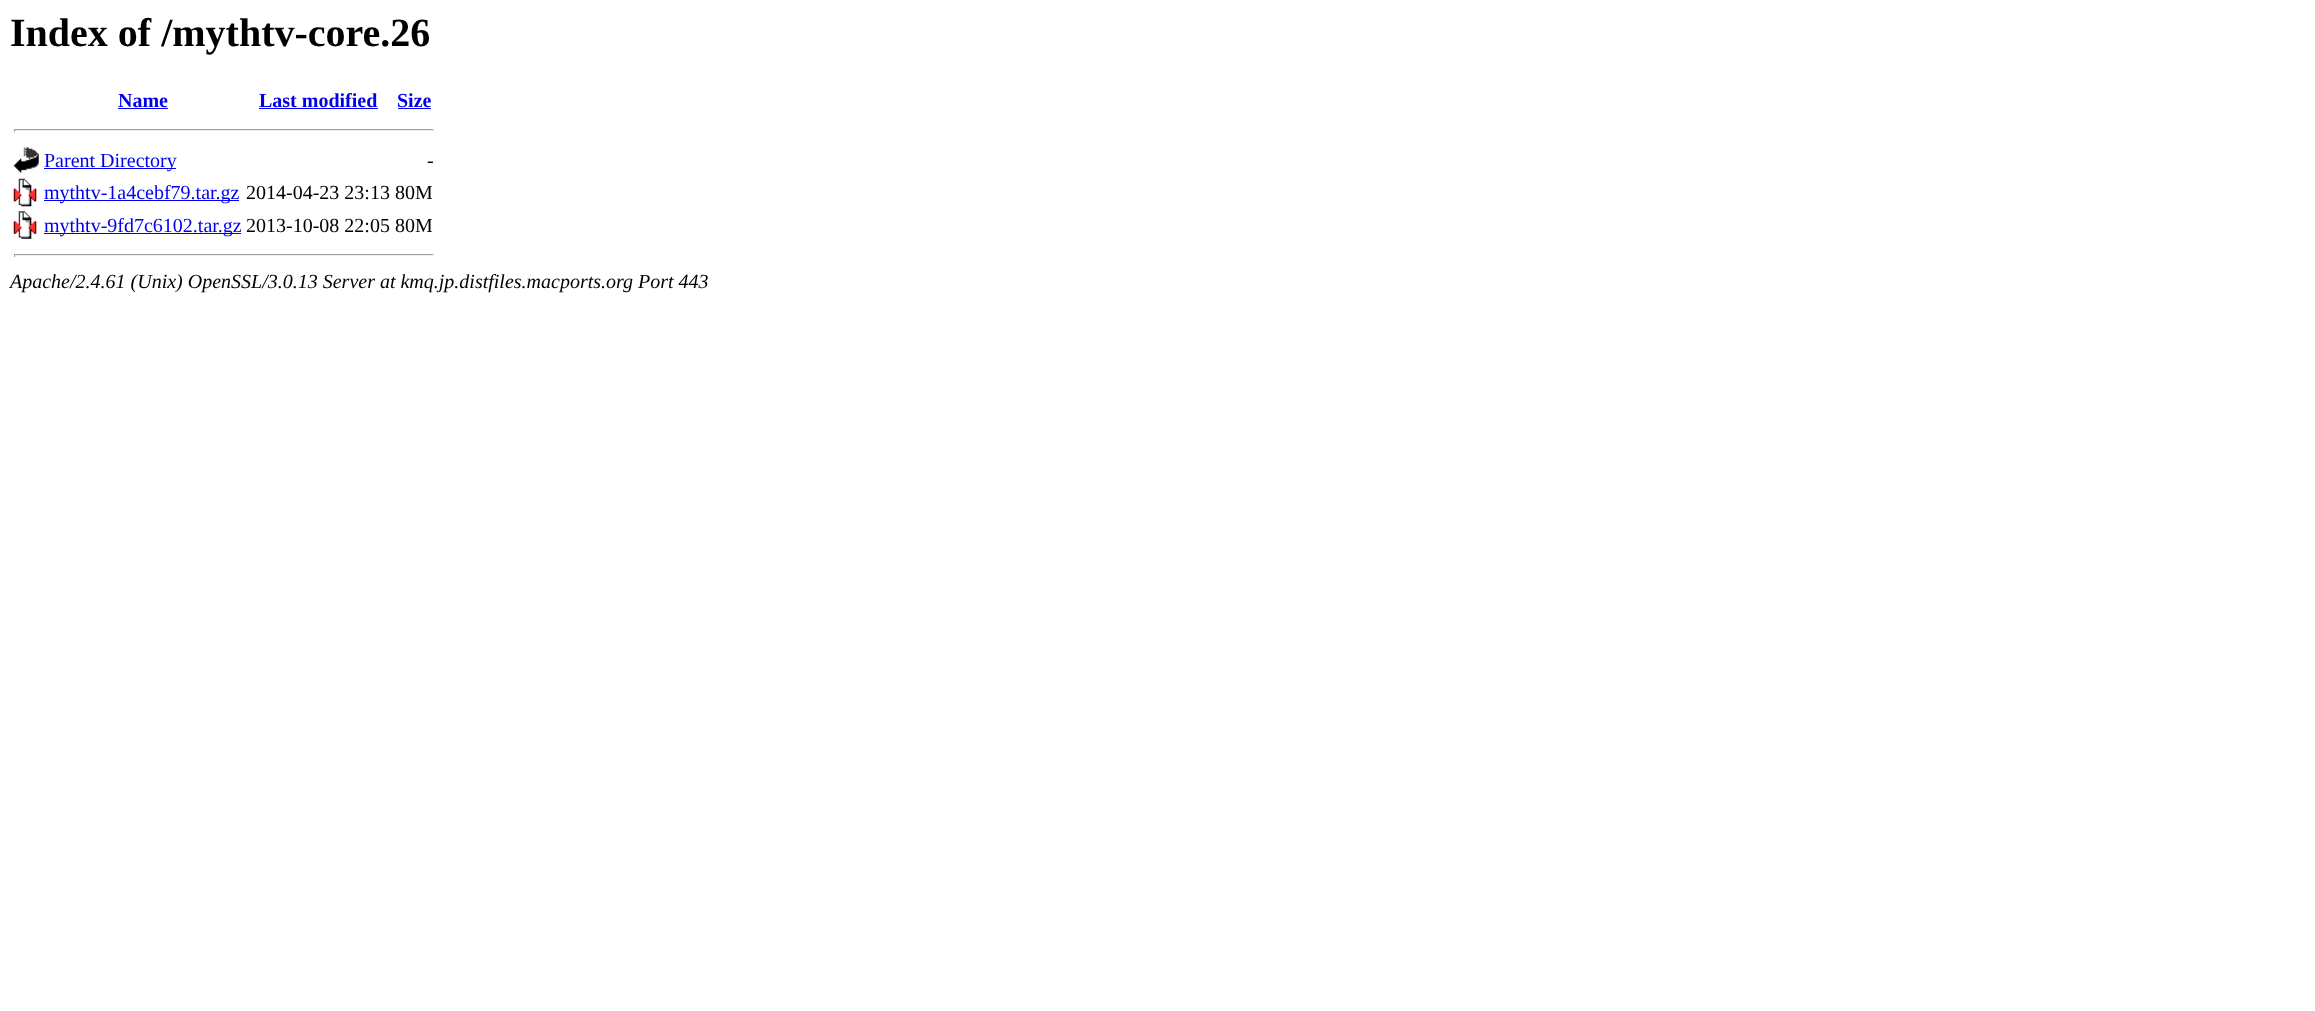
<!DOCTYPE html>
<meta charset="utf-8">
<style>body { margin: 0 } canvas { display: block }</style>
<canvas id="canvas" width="2315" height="1011"></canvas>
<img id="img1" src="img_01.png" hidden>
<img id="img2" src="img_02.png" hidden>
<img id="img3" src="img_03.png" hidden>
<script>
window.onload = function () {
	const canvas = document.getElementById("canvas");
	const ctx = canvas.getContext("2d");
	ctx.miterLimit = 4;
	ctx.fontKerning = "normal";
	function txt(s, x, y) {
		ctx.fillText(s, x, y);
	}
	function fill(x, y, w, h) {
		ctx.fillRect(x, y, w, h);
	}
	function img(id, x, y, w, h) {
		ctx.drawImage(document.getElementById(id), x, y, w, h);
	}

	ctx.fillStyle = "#FFFFFF";
	fill(0, 0, 2315, 1011);
	ctx.fillStyle = "#0000EE";
	fill(118, 108, 50, 1);
	fill(259, 108, 119, 1);
	fill(398, 108, 33, 1);
	ctx.fillStyle = "#9F9F9F";
	fill(14, 129, 420, 1);
	ctx.fillStyle = "#EEEEEE";
	fill(433, 129, 1, 3);
	fill(14, 130, 420, 1);
	ctx.fillStyle = "#9F9F9F";
	fill(14, 129, 1, 3);
	img("img1", 13, 147, 26, 26);
	ctx.fillStyle = "#0000EE";
	fill(44, 168, 132, 1);
	img("img2", 13, 178, 24, 29);
	fill(44, 200, 195, 1);
	img("img3", 13, 211, 24, 28);
	fill(44, 233, 197, 1);
	ctx.fillStyle = "#9F9F9F";
	fill(14, 254, 420, 1);
	ctx.fillStyle = "#EEEEEE";
	fill(433, 254, 1, 3);
	fill(14, 255, 420, 1);
	ctx.fillStyle = "#9F9F9F";
	fill(14, 254, 1, 3);
	ctx.font = "bold 40px Liberation Serif";
	ctx.fillStyle = "#000000";
	txt("Index of /mythtv-core.26", 10, 46);
	ctx.font = "bold 20px Liberation Serif";
	ctx.fillStyle = "#0000EE";
	txt("Name", 118, 107);
	txt("Last modified", 259, 107);
	txt("Size", 397, 107);
	ctx.font = "20px Liberation Serif";
	txt("Parent Directory", 44, 167);
	ctx.fillStyle = "#000000";
	txt("-", 427, 167);
	ctx.fillStyle = "#0000EE";
	txt("mythtv-1a4cebf79.tar.gz", 44, 199);
	ctx.fillStyle = "#000000";
	txt("2014-04-23 23:13 80M", 246, 199);
	ctx.fillStyle = "#0000EE";
	txt("mythtv-9fd7c6102.tar.gz", 44, 232);
	ctx.fillStyle = "#000000";
	txt("2013-10-08 22:05 80M", 246, 232);
	ctx.font = "italic 20px Liberation Serif";
	txt("Apache/2.4.61 (Unix) OpenSSL/3.0.13 Server at kmq.jp.distfiles.macports.org Port 443", 10, 288);
};
</script>
